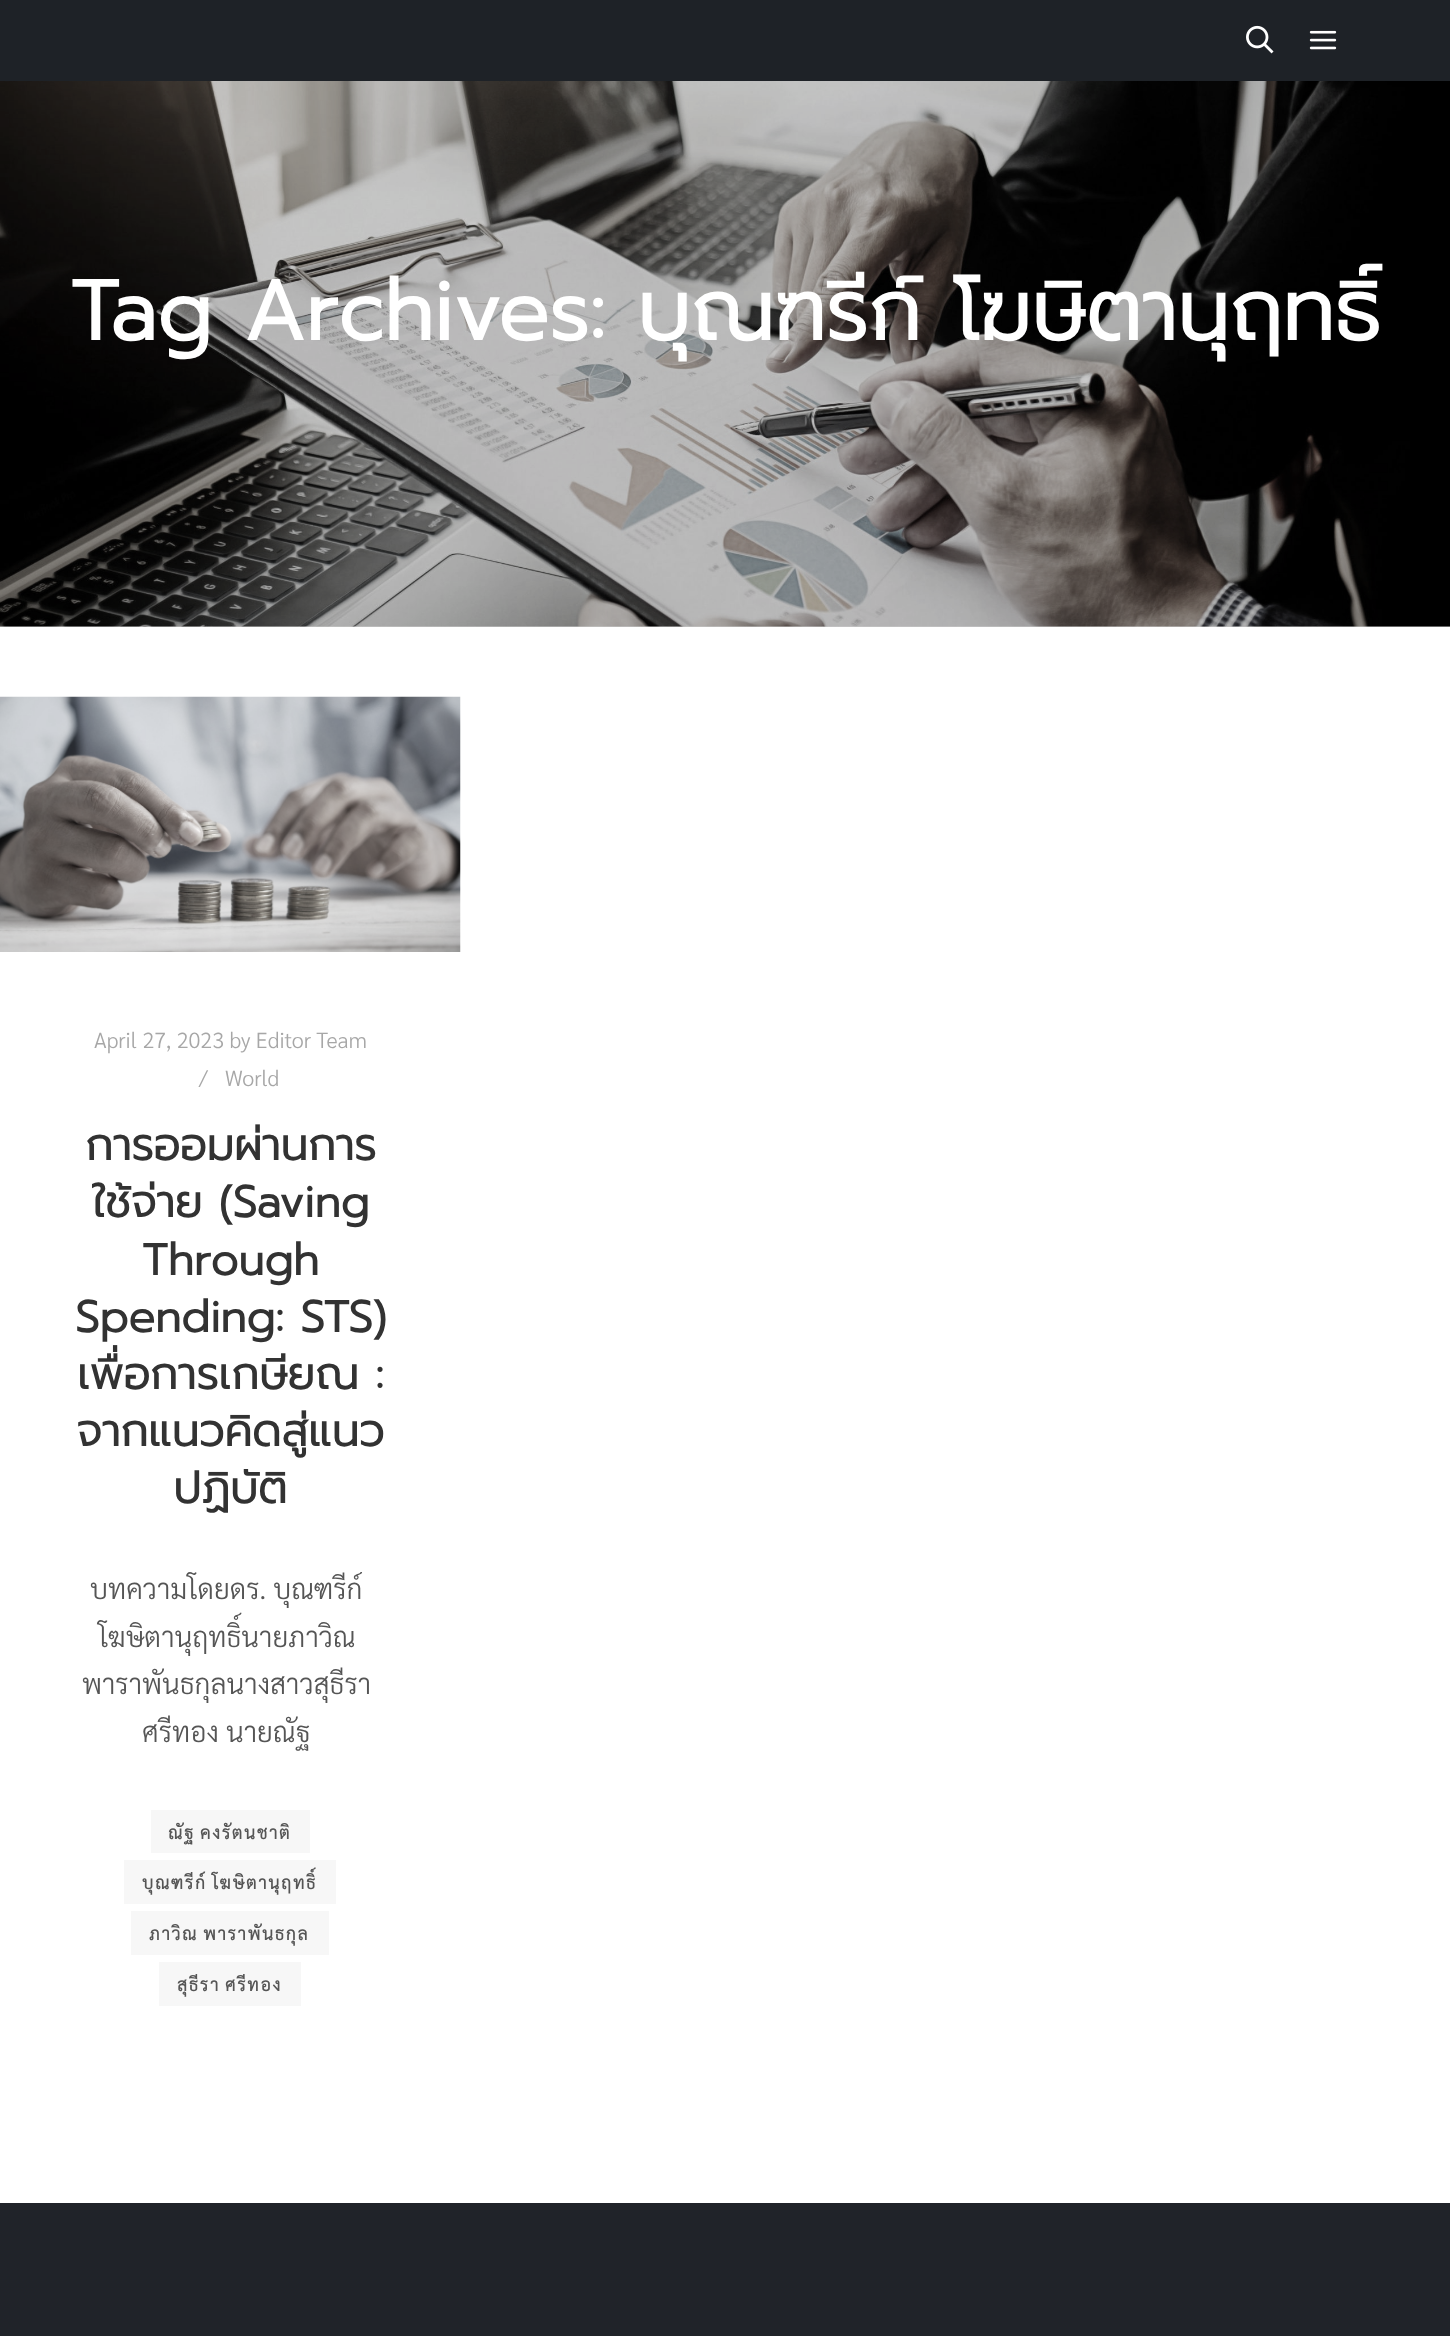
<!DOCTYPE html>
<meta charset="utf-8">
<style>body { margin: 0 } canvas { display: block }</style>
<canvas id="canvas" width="1450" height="2336"></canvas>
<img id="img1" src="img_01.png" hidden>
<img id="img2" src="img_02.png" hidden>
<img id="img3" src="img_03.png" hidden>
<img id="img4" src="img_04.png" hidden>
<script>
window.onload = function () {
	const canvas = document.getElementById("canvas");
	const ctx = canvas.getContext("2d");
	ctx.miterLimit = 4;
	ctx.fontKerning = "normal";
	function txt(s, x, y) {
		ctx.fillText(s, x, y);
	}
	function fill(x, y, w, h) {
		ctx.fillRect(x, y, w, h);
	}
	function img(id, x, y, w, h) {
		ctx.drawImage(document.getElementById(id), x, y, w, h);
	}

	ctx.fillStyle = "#FFFFFF";
	fill(0, 0, 1450, 2336);
	ctx.fillStyle = "#CCCCCC";
	fill(0, 626, 1450, 1);
	ctx.fillStyle = "#1E2227";
	fill(0, 0, 1450, 81);
	img("img1", 1246, 25, 28, 29);
	img("img2", 1309, 30, 28, 20);
	img("img3", 0, 81, 1450, 546);
	img("img4", 0, 696, 461, 256);
	ctx.fillStyle = "#F7F7F7";
	fill(151, 1810, 159, 43);
	fill(124, 1860, 212, 44);
	fill(131, 1911, 198, 44);
	fill(159, 1962, 142, 44);
	ctx.fillStyle = "#202329";
	fill(0, 2203, 1450, 133);
	ctx.font = "bold 84px Prompt";
	ctx.fillStyle = "#FFFFFF";
	txt("Tag Archives: บุณฑรีก์ โฆษิตานุฤทธิ์", 70, 340);
	ctx.font = "300 21.75px Sarabun";
	ctx.fillStyle = "#A7A7A7";
	txt("April 27, 2023 by Editor Team", 94, 1048);
	txt("/", 199, 1086);
	txt("World", 225, 1086);
	ctx.font = "bold 44px Prompt";
	ctx.fillStyle = "#323232";
	txt("การออมผ่านการ", 85, 1160);
	txt("ใช้จ่าย (Saving", 92, 1217);
	txt("Through", 142, 1275);
	txt("Spending: STS)", 75, 1332);
	txt("เพื่อการเกษียณ :", 77, 1389);
	txt("จากแนวคิดสู่แนว", 76, 1446);
	txt("ปฏิบัติ", 173, 1503);
	ctx.font = "300 28px Sarabun";
	ctx.fillStyle = "#555555";
	txt("บทความโดยดร. บุณฑรีก์", 90, 1599);
	txt("โฆษิตานุฤทธิ์นายภาวิณ", 98, 1647);
	txt("พาราพันธกุลนางสาวสุธีรา", 82, 1694);
	txt("ศรีทอง นายณัฐ", 142, 1742);
	ctx.letterSpacing = "1.75px";
	ctx.wordSpacing = "-1px";
	ctx.font = "bold 17.5px Sarabun";
	txt("ณัฐ คงรัตนชาติ", 168, 1839);
	txt("บุณฑรีก์ โฆษิตานุฤทธิ์", 142, 1889);
	txt("ภาวิณ พาราพันธกุล", 149, 1940);
	txt("สุธีรา ศรีทอง", 177, 1991);
};
</script>
